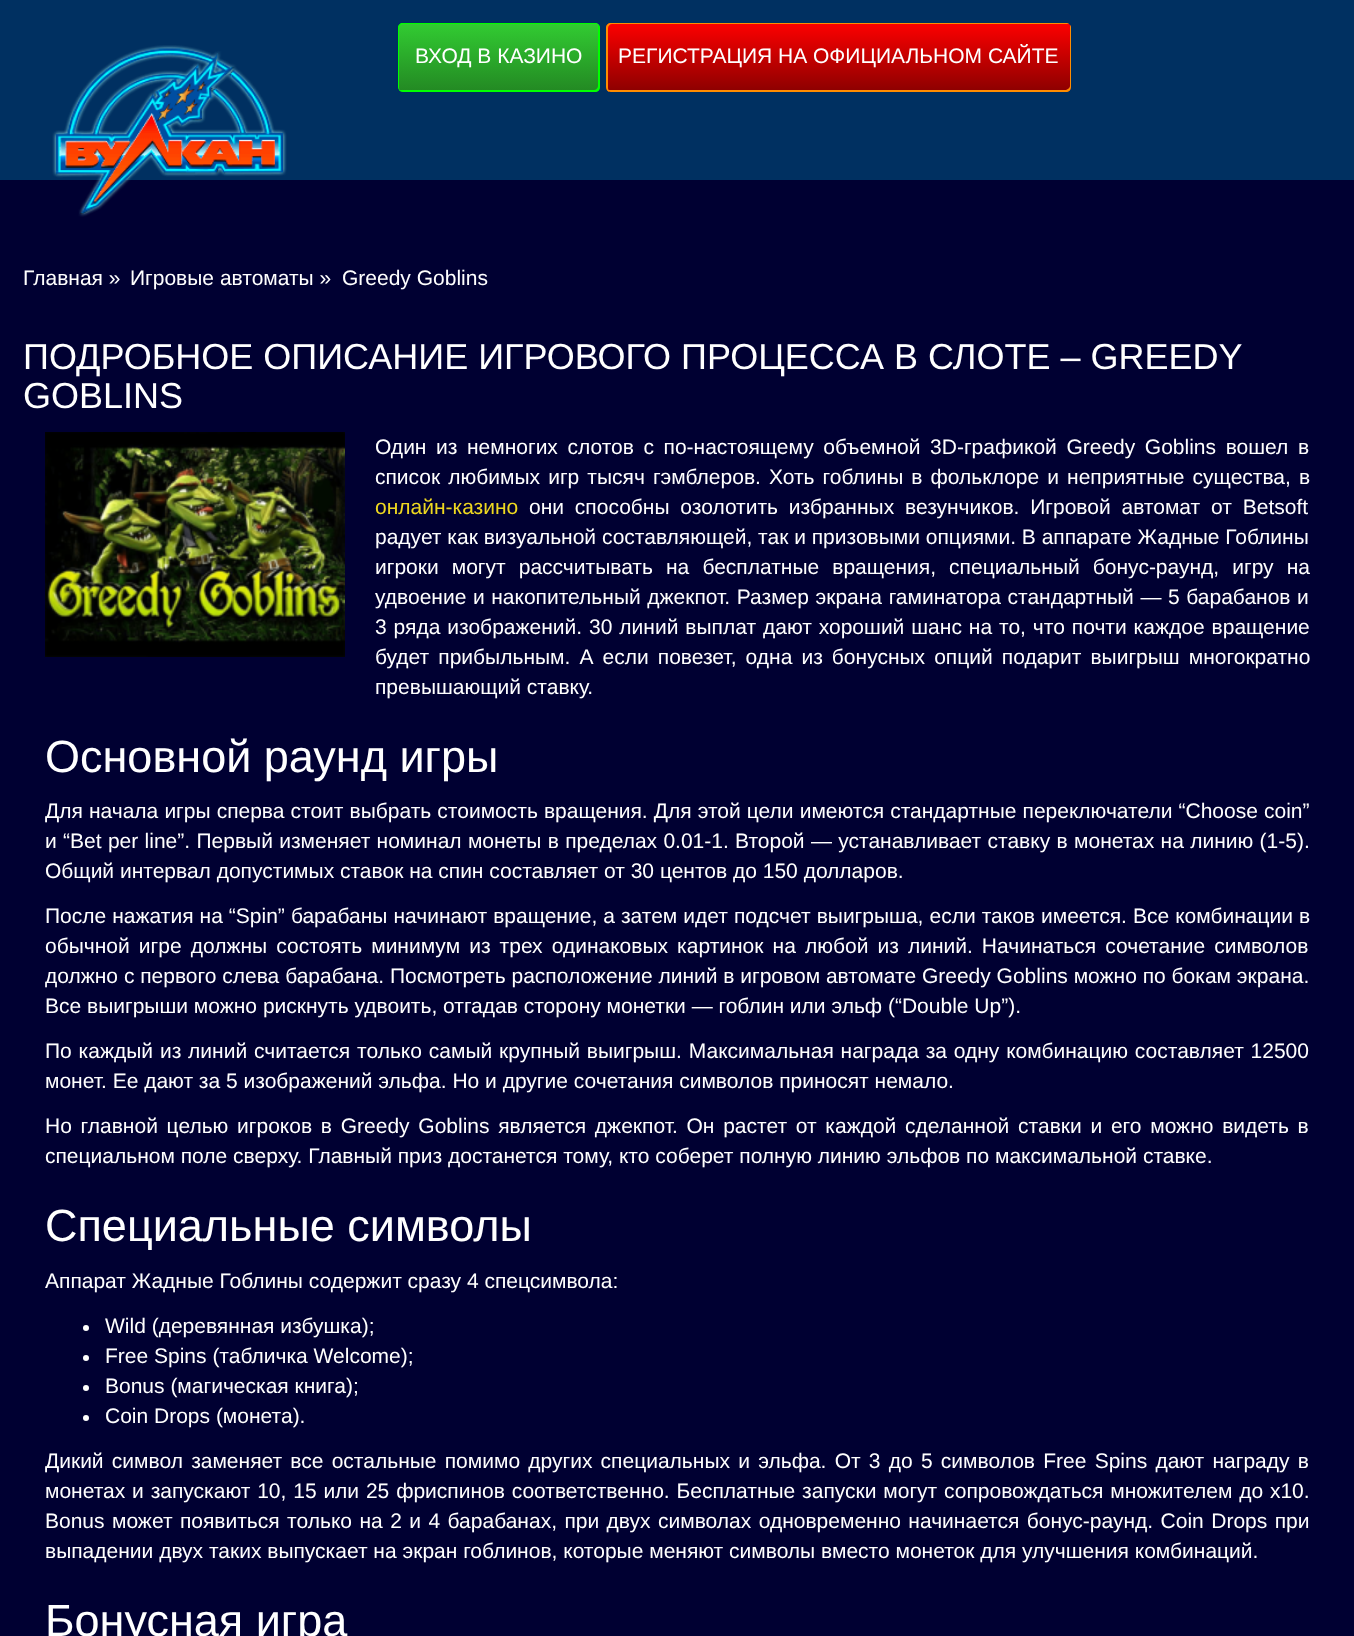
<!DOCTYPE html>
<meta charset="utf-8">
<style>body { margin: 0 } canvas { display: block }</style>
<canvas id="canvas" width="1354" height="1636"></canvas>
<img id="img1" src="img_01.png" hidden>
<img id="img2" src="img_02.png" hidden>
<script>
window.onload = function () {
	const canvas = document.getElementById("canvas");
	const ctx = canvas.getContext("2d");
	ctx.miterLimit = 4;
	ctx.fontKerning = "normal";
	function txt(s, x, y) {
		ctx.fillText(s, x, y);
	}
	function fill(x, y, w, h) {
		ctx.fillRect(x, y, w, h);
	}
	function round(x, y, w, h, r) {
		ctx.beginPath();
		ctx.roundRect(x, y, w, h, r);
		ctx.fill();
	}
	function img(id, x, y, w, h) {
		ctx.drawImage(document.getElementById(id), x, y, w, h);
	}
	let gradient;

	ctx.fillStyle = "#000032";
	fill(0, 0, 1354, 1636);
	ctx.fillStyle = "#003061";
	fill(0, 0, 1354, 180);
	img("img1", 52, 45, 235, 172);
	gradient = ctx.createLinearGradient(499, 22, 499, 92);
	gradient.addColorStop(0, "#32CD32");
	gradient.addColorStop(1, "#238823");
	ctx.fillStyle = gradient;
	round(398, 23, 202, 69, 5);
	ctx.fillStyle = "#00FF00";
	ctx.beginPath();
	ctx.moveTo(399, 90);
	ctx.bezierCurveTo(400, 91, 401, 92, 403, 92);
	ctx.lineTo(595, 92);
	ctx.bezierCurveTo(598, 92, 600, 90, 600, 87);
	ctx.lineTo(600, 28);
	ctx.bezierCurveTo(600, 26, 599, 25, 598, 24);
	ctx.lineTo(598, 26);
	ctx.lineTo(598, 86);
	ctx.bezierCurveTo(598, 88, 596, 90, 594, 90);
	ctx.closePath();
	ctx.fill();
	ctx.beginPath();
	ctx.moveTo(404, 24);
	ctx.lineTo(598, 24);
	ctx.bezierCurveTo(597, 23, 596, 23, 595, 23);
	ctx.lineTo(403, 23);
	ctx.bezierCurveTo(400, 23, 398, 25, 398, 28);
	ctx.lineTo(398, 87);
	ctx.bezierCurveTo(398, 88, 399, 90, 400, 91);
	ctx.lineTo(399, 88);
	ctx.lineTo(399, 28);
	ctx.bezierCurveTo(399, 26, 401, 24, 404, 24);
	ctx.closePath();
	ctx.fill();
	gradient = ctx.createLinearGradient(839, 22, 839, 92);
	gradient.addColorStop(0, "#FF0000");
	gradient.addColorStop(1, "#8B0000");
	ctx.fillStyle = gradient;
	round(606, 23, 465, 69, 5);
	ctx.fillStyle = "#FF8C00";
	ctx.beginPath();
	ctx.moveTo(607, 89);
	ctx.bezierCurveTo(607, 91, 609, 92, 611, 92);
	ctx.lineTo(1066, 92);
	ctx.bezierCurveTo(1069, 92, 1071, 90, 1071, 87);
	ctx.lineTo(1071, 28);
	ctx.bezierCurveTo(1071, 27, 1071, 26, 1070, 25);
	ctx.lineTo(1070, 86);
	ctx.bezierCurveTo(1070, 88, 1067, 90, 1065, 90);
	ctx.lineTo(609, 90);
	ctx.closePath();
	ctx.fill();
	ctx.beginPath();
	ctx.moveTo(612, 24);
	ctx.lineTo(1069, 24);
	ctx.bezierCurveTo(1068, 23, 1067, 23, 1066, 23);
	ctx.lineTo(611, 23);
	ctx.bezierCurveTo(608, 23, 606, 25, 606, 28);
	ctx.lineTo(606, 87);
	ctx.bezierCurveTo(606, 89, 607, 91, 609, 92);
	ctx.bezierCurveTo(609, 91, 608, 90, 608, 88);
	ctx.lineTo(608, 28);
	ctx.bezierCurveTo(608, 26, 610, 24, 612, 24);
	ctx.closePath();
	ctx.fill();
	img("img2", 45, 432, 300, 225);
	ctx.fillStyle = "#FFFFFF";
	ctx.beginPath();
	ctx.arc(86, 1328, 3, 0, Math.PI * 2);
	ctx.fill();
	ctx.beginPath();
	ctx.arc(86, 1358, 3, 0, Math.PI * 2);
	ctx.fill();
	ctx.beginPath();
	ctx.arc(86, 1388, 3, 0, Math.PI * 2);
	ctx.fill();
	ctx.beginPath();
	ctx.arc(86, 1418, 3, 0, Math.PI * 2);
	ctx.fill();
	ctx.font = "21px Liberation Sans";
	txt("ВХОД В КАЗИНО", 415, 63);
	txt("РЕГИСТРАЦИЯ НА ОФИЦИАЛЬНОМ САЙТЕ", 618, 63);
	txt("Главная »", 23, 285);
	txt("Игровые автоматы »", 130, 285);
	txt("Greedy Goblins", 342, 285);
	ctx.font = "36px Liberation Sans";
	txt("ПОДРОБНОЕ ОПИСАНИЕ ИГРОВОГО ПРОЦЕССА В СЛОТЕ – GREEDY", 23, 369);
	txt("GOBLINS", 23, 408);
	ctx.wordSpacing = "3.75px";
	ctx.font = "21px Liberation Sans";
	txt("Один из немногих слотов с по-настоящему объемной 3D-графикой Greedy Goblins вошел в", 375, 454);
	ctx.wordSpacing = "2.25px";
	txt("список любимых игр тысяч гэмблеров. Хоть гоблины в фольклоре и неприятные существа, в", 375, 484);
	ctx.wordSpacing = "0px";
	ctx.fillStyle = "#EED820";
	txt("онлайн-казино", 375, 514);
	ctx.wordSpacing = "5px";
	ctx.fillStyle = "#FFFFFF";
	txt("они способны озолотить избранных везунчиков. Игровой автомат от Betsoft", 529, 514);
	ctx.wordSpacing = "0px";
	txt("радует как визуальной составляющей, так и призовыми опциями. В аппарате Жадные Гоблины", 375, 544);
	ctx.wordSpacing = "7.25px";
	txt("игроки могут рассчитывать на бесплатные вращения, специальный бонус-раунд, игру на", 375, 574);
	ctx.wordSpacing = "0.75px";
	txt("удвоение и накопительный джекпот. Размер экрана гаминатора стандартный — 5 барабанов и", 375, 604);
	ctx.wordSpacing = "1.1px";
	txt("3 ряда изображений. 30 линий выплат дают хороший шанс на то, что почти каждое вращение", 375, 634);
	ctx.wordSpacing = "3.25px";
	txt("будет прибыльным. А если повезет, одна из бонусных опций подарит выигрыш многократно", 375, 664);
	ctx.wordSpacing = "0px";
	txt("превышающий ставку.", 375, 694);
	ctx.font = "45px Liberation Sans";
	txt("Основной раунд игры", 45, 772);
	ctx.wordSpacing = "0.25px";
	ctx.font = "21px Liberation Sans";
	txt("Для начала игры сперва стоит выбрать стоимость вращения. Для этой цели имеются стандартные переключатели “Choose coin”", 45, 818);
	ctx.wordSpacing = "0.5px";
	txt("и “Bet per line”. Первый изменяет номинал монеты в пределах 0.01-1. Второй — устанавливает ставку в монетах на линию (1-5).", 45, 848);
	ctx.wordSpacing = "0px";
	txt("Общий интервал допустимых ставок на спин составляет от 30 центов до 150 долларов.", 45, 878);
	ctx.wordSpacing = "0.2px";
	txt("После нажатия на “Spin” барабаны начинают вращение, а затем идет подсчет выигрыша, если таков имеется. Все комбинации в", 45, 923);
	ctx.wordSpacing = "3.25px";
	txt("обычной игре должны состоять минимум из трех одинаковых картинок на любой из линий. Начинаться сочетание символов", 45, 953);
	ctx.wordSpacing = "0px";
	txt("должно с первого слева барабана. Посмотреть расположение линий в игровом автомате Greedy Goblins можно по бокам экрана.", 45, 983);
	txt("Все выигрыши можно рискнуть удвоить, отгадав сторону монетки — гоблин или эльф (“Double Up”).", 45, 1013);
	ctx.wordSpacing = "1px";
	txt("По каждый из линий считается только самый крупный выигрыш. Максимальная награда за одну комбинацию составляет 12500", 45, 1058);
	ctx.wordSpacing = "0px";
	txt("монет. Ее дают за 5 изображений эльфа. Но и другие сочетания символов приносят немало.", 45, 1088);
	ctx.wordSpacing = "2.9px";
	txt("Но главной целью игроков в Greedy Goblins является джекпот. Он растет от каждой сделанной ставки и его можно видеть в", 45, 1133);
	ctx.wordSpacing = "0px";
	txt("специальном поле сверху. Главный приз достанется тому, кто соберет полную линию эльфов по максимальной ставке.", 45, 1163);
	ctx.font = "45px Liberation Sans";
	txt("Специальные символы", 45, 1241);
	ctx.font = "21px Liberation Sans";
	txt("Аппарат Жадные Гоблины содержит сразу 4 спецсимвола:", 45, 1288);
	txt("Wild (деревянная избушка);", 105, 1333);
	txt("Free Spins (табличка Welcome);", 105, 1363);
	txt("Bonus (магическая книга);", 105, 1393);
	txt("Coin Drops (монета).", 105, 1423);
	ctx.wordSpacing = "2.4px";
	txt("Дикий символ заменяет все остальные помимо других специальных и эльфа. От 3 до 5 символов Free Spins дают награду в", 45, 1468);
	ctx.wordSpacing = "1px";
	txt("монетах и запускают 10, 15 или 25 фриспинов соответственно. Бесплатные запуски могут сопровождаться множителем до х10.", 45, 1498);
	ctx.wordSpacing = "1.6px";
	txt("Bonus может появиться только на 2 и 4 барабанах, при двух символах одновременно начинается бонус-раунд. Coin Drops при", 45, 1528);
	ctx.wordSpacing = "0px";
	txt("выпадении двух таких выпускает на экран гоблинов, которые меняют символы вместо монеток для улучшения комбинаций.", 45, 1558);
	ctx.font = "45px Liberation Sans";
	txt("Бонусная игра", 45, 1636);
};
</script>
